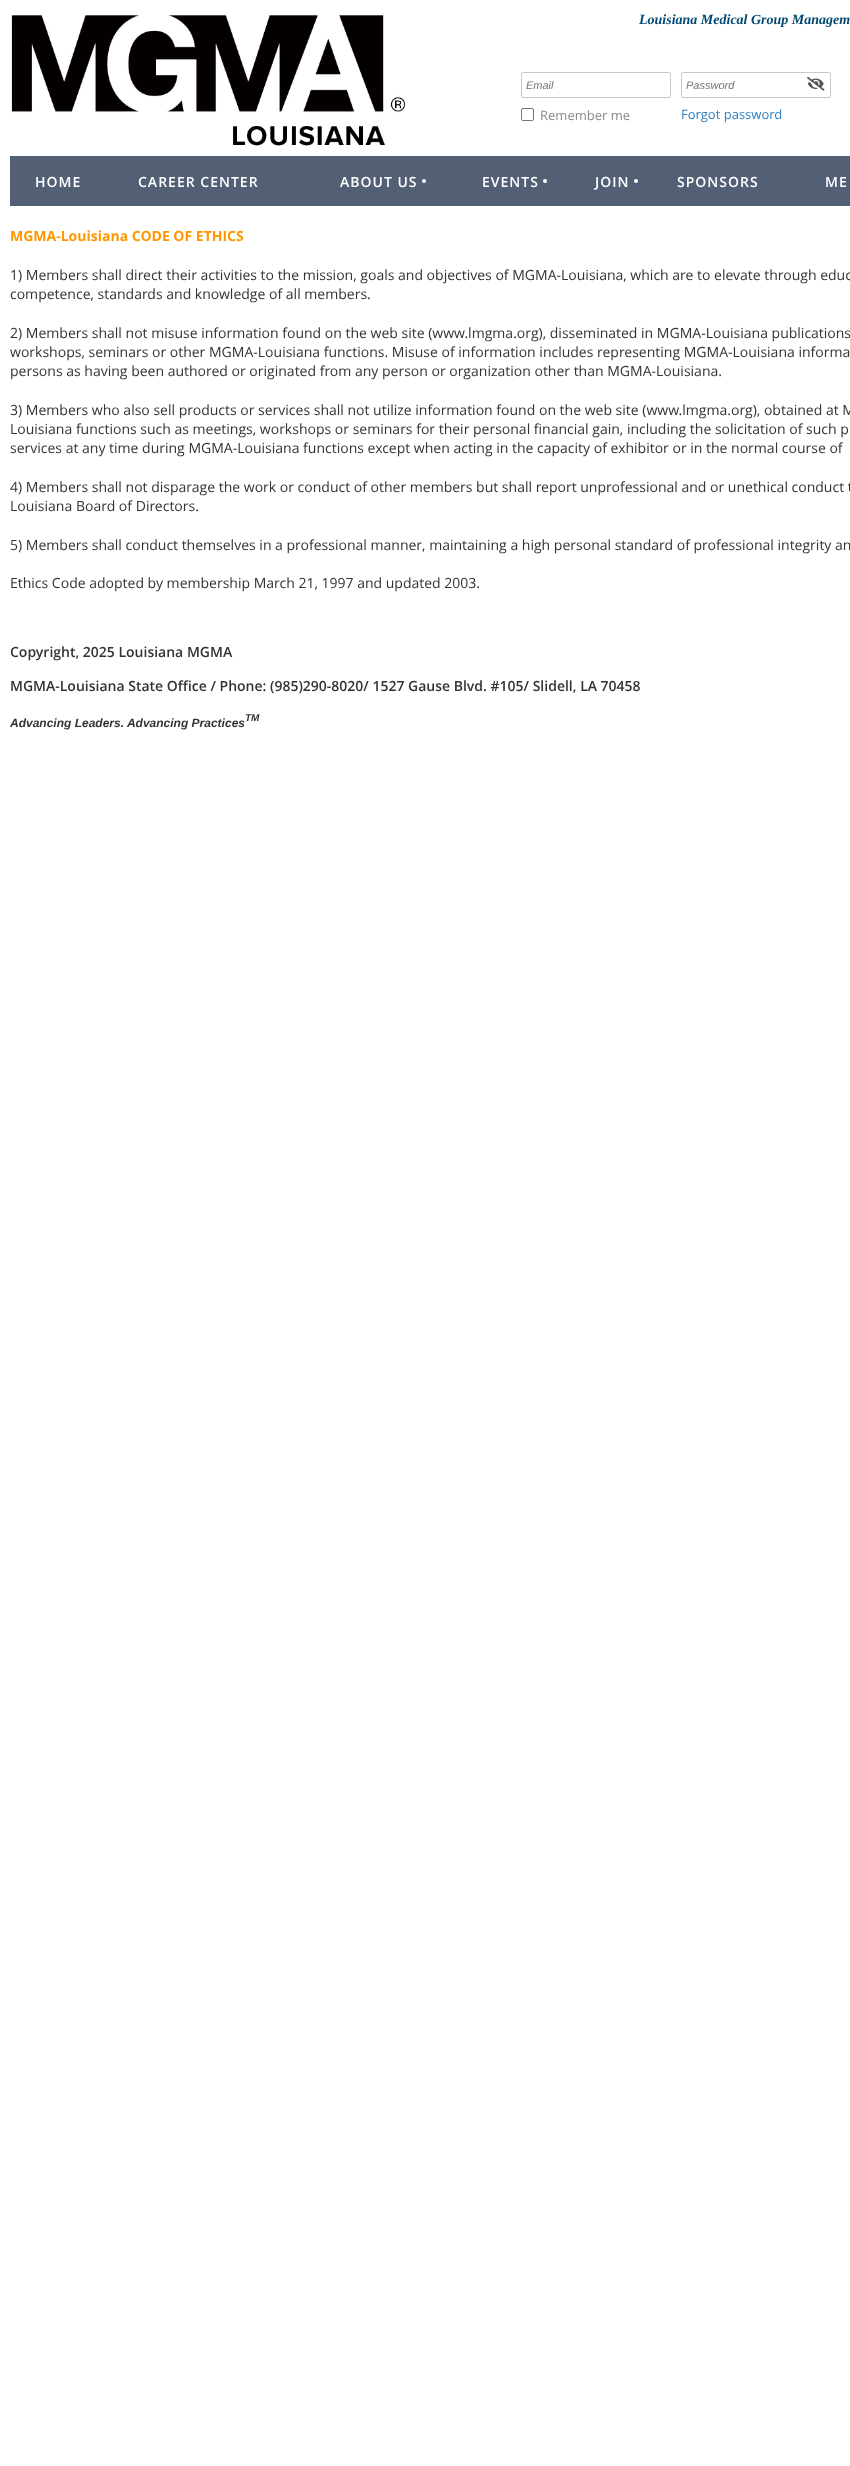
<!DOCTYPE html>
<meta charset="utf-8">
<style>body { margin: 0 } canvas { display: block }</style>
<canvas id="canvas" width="850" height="2466"></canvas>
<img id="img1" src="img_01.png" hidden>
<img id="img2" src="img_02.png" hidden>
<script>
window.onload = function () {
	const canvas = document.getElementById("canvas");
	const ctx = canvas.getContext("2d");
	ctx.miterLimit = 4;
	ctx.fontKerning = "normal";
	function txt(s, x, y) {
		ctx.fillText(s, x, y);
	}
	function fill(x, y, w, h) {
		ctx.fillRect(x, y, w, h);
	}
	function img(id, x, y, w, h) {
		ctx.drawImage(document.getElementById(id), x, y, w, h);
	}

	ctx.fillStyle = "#FFFFFF";
	fill(0, 0, 850, 2466);
	img("img1", 10, 15, 395, 131);
	ctx.beginPath();
	ctx.roundRect(521.5, 72.5, 149, 25, 1.5);
	ctx.strokeStyle = "#C9C9C9";
	ctx.stroke();
	ctx.beginPath();
	ctx.roundRect(681.5, 72.5, 149, 25, 1.5);
	ctx.stroke();
	img("img2", 807, 76, 18, 15);
	ctx.beginPath();
	ctx.roundRect(521.5, 108.5, 12, 12, 1.5);
	ctx.strokeStyle = "#767676";
	ctx.stroke();
	ctx.fillStyle = "#535F75";
	fill(10, 156, 840, 50);
	ctx.fillStyle = "#FFFFFF";
	ctx.beginPath();
	ctx.arc(424, 181, 2, 0, Math.PI * 2);
	ctx.fill();
	ctx.beginPath();
	ctx.arc(545, 181, 2, 0, Math.PI * 2);
	ctx.fill();
	ctx.beginPath();
	ctx.arc(636, 181, 2, 0, Math.PI * 2);
	ctx.fill();
	ctx.font = "italic bold 14px Liberation Serif";
	ctx.fillStyle = "#004872";
	txt("Louisiana Medical Group Managem", 639, 24);
	ctx.font = "italic 11px Liberation Sans";
	ctx.fillStyle = "#757575";
	txt("Email", 526, 89);
	txt("Password", 686, 89);
	ctx.font = "13px Open Sans";
	ctx.fillStyle = "#8A8A8A";
	txt("Remember me", 540, 120);
	ctx.fillStyle = "#2B7DBF";
	txt("Forgot password", 681, 119);
	ctx.letterSpacing = "1px";
	ctx.font = "600 14px Open Sans";
	ctx.fillStyle = "#FFFFFF";
	txt("HOME", 35, 187);
	txt("CAREER CENTER", 138, 187);
	txt("ABOUT US", 340, 187);
	txt("EVENTS", 482, 187);
	txt("JOIN", 595, 187);
	txt("SPONSORS", 677, 187);
	txt("ME", 825, 187);
	ctx.letterSpacing = "0px";
	ctx.font = "bold 14px Open Sans";
	ctx.fillStyle = "#FF9700";
	txt("MGMA-Louisiana CODE OF ETHICS", 10, 241);
	ctx.font = "14px Open Sans";
	ctx.fillStyle = "#333333";
	txt("1) Members shall direct their activities to the mission, goals and objectives of MGMA-Louisiana, which are to elevate through educ", 10, 280);
	txt("competence, standards and knowledge of all members.", 10, 299);
	txt("2) Members shall not misuse information found on the web site (www.lmgma.org), disseminated in MGMA-Louisiana publications", 10, 338);
	txt("workshops, seminars or other MGMA-Louisiana functions. Misuse of information includes representing MGMA-Louisiana informa", 10, 357);
	txt("persons as having been authored or originated from any person or organization other than MGMA-Louisiana.", 10, 376);
	txt("3) Members who also sell products or services shall not utilize information found on the web site (www.lmgma.org), obtained at M", 10, 415);
	txt("Louisiana functions such as meetings, workshops or seminars for their personal financial gain, including the solicitation of such p", 10, 434);
	txt("services at any time during MGMA-Louisiana functions except when acting in the capacity of exhibitor or in the normal course of", 10, 453);
	txt("4) Members shall not disparage the work or conduct of other members but shall report unprofessional and or unethical conduct t", 10, 492);
	txt("Louisiana Board of Directors.", 10, 511);
	txt("5) Members shall conduct themselves in a professional manner, maintaining a high personal standard of professional integrity an", 10, 550);
	txt("Ethics Code adopted by membership March 21, 1997 and updated 2003.", 10, 588);
	ctx.font = "600 14px Open Sans";
	txt("Copyright, 2025 Louisiana MGMA", 10, 657);
	txt("MGMA-Louisiana State Office / Phone: (985)290-8020/ 1527 Gause Blvd. #105/ Slidell, LA 70458", 10, 691);
	ctx.font = "italic bold 12px Liberation Sans";
	txt("Advancing Leaders. Advancing Practices", 10, 727);
	ctx.font = "italic bold 10px Liberation Sans";
	txt("TM", 245, 721);
};
</script>
